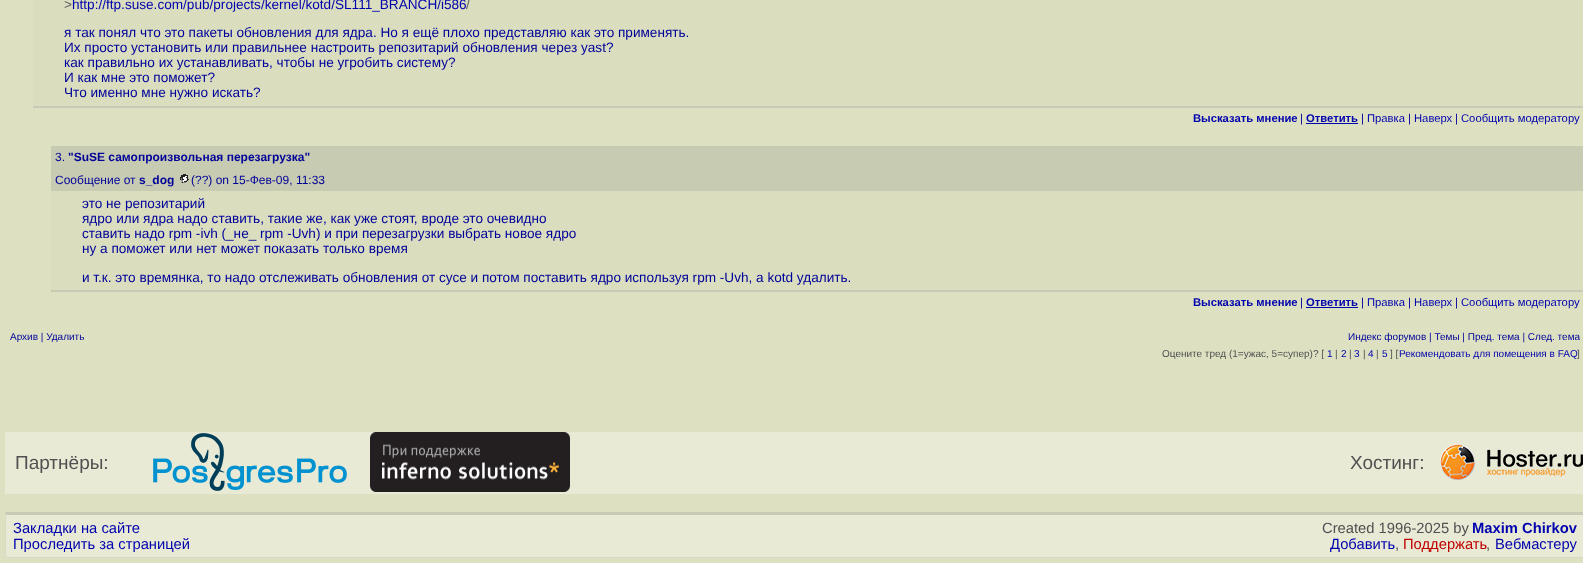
<!DOCTYPE html>
<meta charset="utf-8">
<style>body { margin: 0 } canvas { display: block }</style>
<canvas id="canvas" width="1583" height="563"></canvas>
<img id="img1" src="img_01.png" hidden>
<img id="img2" src="img_02.png" hidden>
<img id="img3" src="img_03.png" hidden>
<img id="img4" src="img_04.png" hidden>
<script>
window.onload = function () {
	const canvas = document.getElementById("canvas");
	const ctx = canvas.getContext("2d");
	ctx.miterLimit = 4;
	ctx.fontKerning = "normal";
	function txt(s, x, y) {
		ctx.fillText(s, x, y);
	}
	function fill(x, y, w, h) {
		ctx.fillRect(x, y, w, h);
	}
	function img(id, x, y, w, h) {
		ctx.drawImage(document.getElementById(id), x, y, w, h);
	}

	ctx.fillStyle = "#DDE1C2";
	fill(0, 0, 1583, 563);
	ctx.fillStyle = "#DADEBF";
	fill(33, 0, 1550, 106);
	ctx.fillStyle = "#C9CAB6";
	fill(33, 106, 1550, 2);
	ctx.fillStyle = "#0000AD";
	fill(1306, 123, 52, 1);
	ctx.fillStyle = "#C7CBB1";
	fill(51, 146, 1532, 45);
	img("img1", 180, 174, 9, 9);
	ctx.fillStyle = "#DADEBF";
	fill(51, 191, 1532, 99);
	ctx.fillStyle = "#C9CAB6";
	fill(51, 290, 1532, 2);
	ctx.fillStyle = "#0000AD";
	fill(1306, 307, 52, 1);
	ctx.fillStyle = "#E9EAD6";
	fill(5, 432, 1578, 62);
	img("img2", 153, 433, 194, 58);
	img("img3", 370, 432, 200, 60);
	img("img4", 1440, 444, 143, 36);
	fill(5, 512, 1578, 45);
	ctx.fillStyle = "#C9CAB6";
	ctx.beginPath();
	ctx.moveTo(5, 512);
	ctx.lineTo(1583, 512);
	ctx.lineTo(1583, 515);
	ctx.lineTo(6, 515);
	ctx.closePath();
	ctx.fill();
	ctx.fillStyle = "#D9DAC6";
	fill(5, 557, 1578, 1);
	ctx.beginPath();
	ctx.moveTo(5, 558);
	ctx.lineTo(5, 512);
	ctx.lineTo(6, 515);
	ctx.lineTo(6, 557);
	ctx.closePath();
	ctx.fill();
	ctx.font = "13.6px Liberation Sans";
	ctx.fillStyle = "#606060";
	txt(">", 64, 9);
	ctx.fillStyle = "#0000AD";
	txt("http://ftp.suse.com/pub/projects/kernel/kotd/SL111_BRANCH/i586", 72, 9);
	ctx.fillStyle = "#606060";
	txt("/", 466, 9);
	ctx.fillStyle = "#000099";
	txt("я так понял что это пакеты обновления для ядра. Но я ещё плохо представляю как это применять.", 64, 37);
	txt("Их просто установить или правильнее настроить репозитарий обновления через yast?", 64, 52);
	txt("как правильно их устанавливать, чтобы не угробить систему?", 64, 67);
	txt("И как мне это поможет?", 64, 82);
	txt("Что именно мне нужно искать?", 64, 97);
	ctx.font = "bold 11.25px Liberation Sans";
	ctx.fillStyle = "#0000AD";
	txt("Высказать мнение", 1193, 122);
	ctx.font = "11.25px Liberation Sans";
	ctx.fillStyle = "#000099";
	txt("|", 1300, 122);
	ctx.font = "bold 11.25px Liberation Sans";
	ctx.fillStyle = "#0000AD";
	txt("Ответить", 1306, 122);
	ctx.font = "11.25px Liberation Sans";
	ctx.fillStyle = "#000099";
	txt("|", 1361, 122);
	ctx.fillStyle = "#0000AD";
	txt("Правка", 1367, 122);
	ctx.fillStyle = "#000099";
	txt("|", 1408, 122);
	ctx.fillStyle = "#0000AD";
	txt("Наверх", 1414, 122);
	ctx.fillStyle = "#000099";
	txt("|", 1455, 122);
	ctx.fillStyle = "#0000AD";
	txt("Cообщить модератору", 1461, 122);
	ctx.font = "12px Liberation Sans";
	ctx.fillStyle = "#000099";
	txt("3.", 55, 161);
	ctx.font = "bold 12px Liberation Sans";
	txt("\"SuSE самопроизвольная перезагрузка\"", 68, 161);
	ctx.font = "12px Liberation Sans";
	txt("Сообщение от", 55, 184);
	ctx.font = "bold 12px Liberation Sans";
	txt("s_dog", 139, 184);
	ctx.font = "12px Liberation Sans";
	txt("(??) on 15-Фев-09, 11:33", 191, 184);
	ctx.font = "13.6px Liberation Sans";
	txt("это не репозитарий", 82, 208);
	txt("ядро или ядра надо ставить, такие же, как уже стоят, вроде это очевидно", 82, 223);
	txt("ставить надо rpm -ivh (_не_ rpm -Uvh) и при перезагрузки выбрать новое ядро", 82, 238);
	txt("ну а поможет или нет может показать только время", 82, 253);
	txt("и т.к. это времянка, то надо отслеживать обновления от сусе и потом поставить ядро используя rpm -Uvh, а kotd удалить.", 82, 282);
	ctx.font = "bold 11.25px Liberation Sans";
	ctx.fillStyle = "#0000AD";
	txt("Высказать мнение", 1193, 306);
	ctx.font = "11.25px Liberation Sans";
	ctx.fillStyle = "#000099";
	txt("|", 1300, 306);
	ctx.font = "bold 11.25px Liberation Sans";
	ctx.fillStyle = "#0000AD";
	txt("Ответить", 1306, 306);
	ctx.font = "11.25px Liberation Sans";
	ctx.fillStyle = "#000099";
	txt("|", 1361, 306);
	ctx.fillStyle = "#0000AD";
	txt("Правка", 1367, 306);
	ctx.fillStyle = "#000099";
	txt("|", 1408, 306);
	ctx.fillStyle = "#0000AD";
	txt("Наверх", 1414, 306);
	ctx.fillStyle = "#000099";
	txt("|", 1455, 306);
	ctx.fillStyle = "#0000AD";
	txt("Cообщить модератору", 1461, 306);
	ctx.font = "10px Liberation Sans";
	ctx.fillStyle = "#000099";
	txt("Архив | Удалить", 10, 340);
	txt("Индекс форумов | Темы | Пред. тема | След. тема", 1348, 340);
	ctx.fillStyle = "#505050";
	txt("Оцените тред (1=ужас, 5=супер)? [", 1162, 357);
	ctx.fillStyle = "#0000AD";
	txt("1", 1327, 357);
	ctx.fillStyle = "#505050";
	txt("|", 1335, 357);
	ctx.fillStyle = "#0000AD";
	txt("2", 1341, 357);
	ctx.fillStyle = "#505050";
	txt("|", 1349, 357);
	ctx.fillStyle = "#0000AD";
	txt("3", 1354, 357);
	ctx.fillStyle = "#505050";
	txt("|", 1363, 357);
	ctx.fillStyle = "#0000AD";
	txt("4", 1368, 357);
	ctx.fillStyle = "#505050";
	txt("|", 1376, 357);
	ctx.fillStyle = "#0000AD";
	txt("5", 1382, 357);
	ctx.fillStyle = "#505050";
	txt("] [", 1390, 357);
	ctx.fillStyle = "#0000AD";
	txt("Рекомендовать для помещения в FAQ", 1399, 357);
	ctx.fillStyle = "#505050";
	txt("]", 1577, 357);
	ctx.font = "19px Liberation Sans";
	txt("Партнёры:", 15, 469);
	txt("Хостинг:", 1350, 469);
	ctx.font = "14.75px Liberation Sans";
	ctx.fillStyle = "#0000AD";
	txt("Закладки на сайте", 13, 533);
	txt("Проследить за страницей", 13, 549);
	ctx.fillStyle = "#505050";
	txt("Created 1996-2025 by", 1322, 533);
	ctx.font = "bold 14.75px Liberation Sans";
	ctx.fillStyle = "#0000AD";
	txt("Maxim Chirkov", 1472, 533);
	ctx.font = "14.75px Liberation Sans";
	txt("Добавить", 1330, 549);
	ctx.fillStyle = "#505050";
	txt(",", 1395, 549);
	ctx.fillStyle = "#C00000";
	txt("Поддержать", 1403, 549);
	ctx.fillStyle = "#505050";
	txt(",", 1486, 549);
	ctx.fillStyle = "#0000AD";
	txt("Вебмастеру", 1495, 549);
};
</script>
